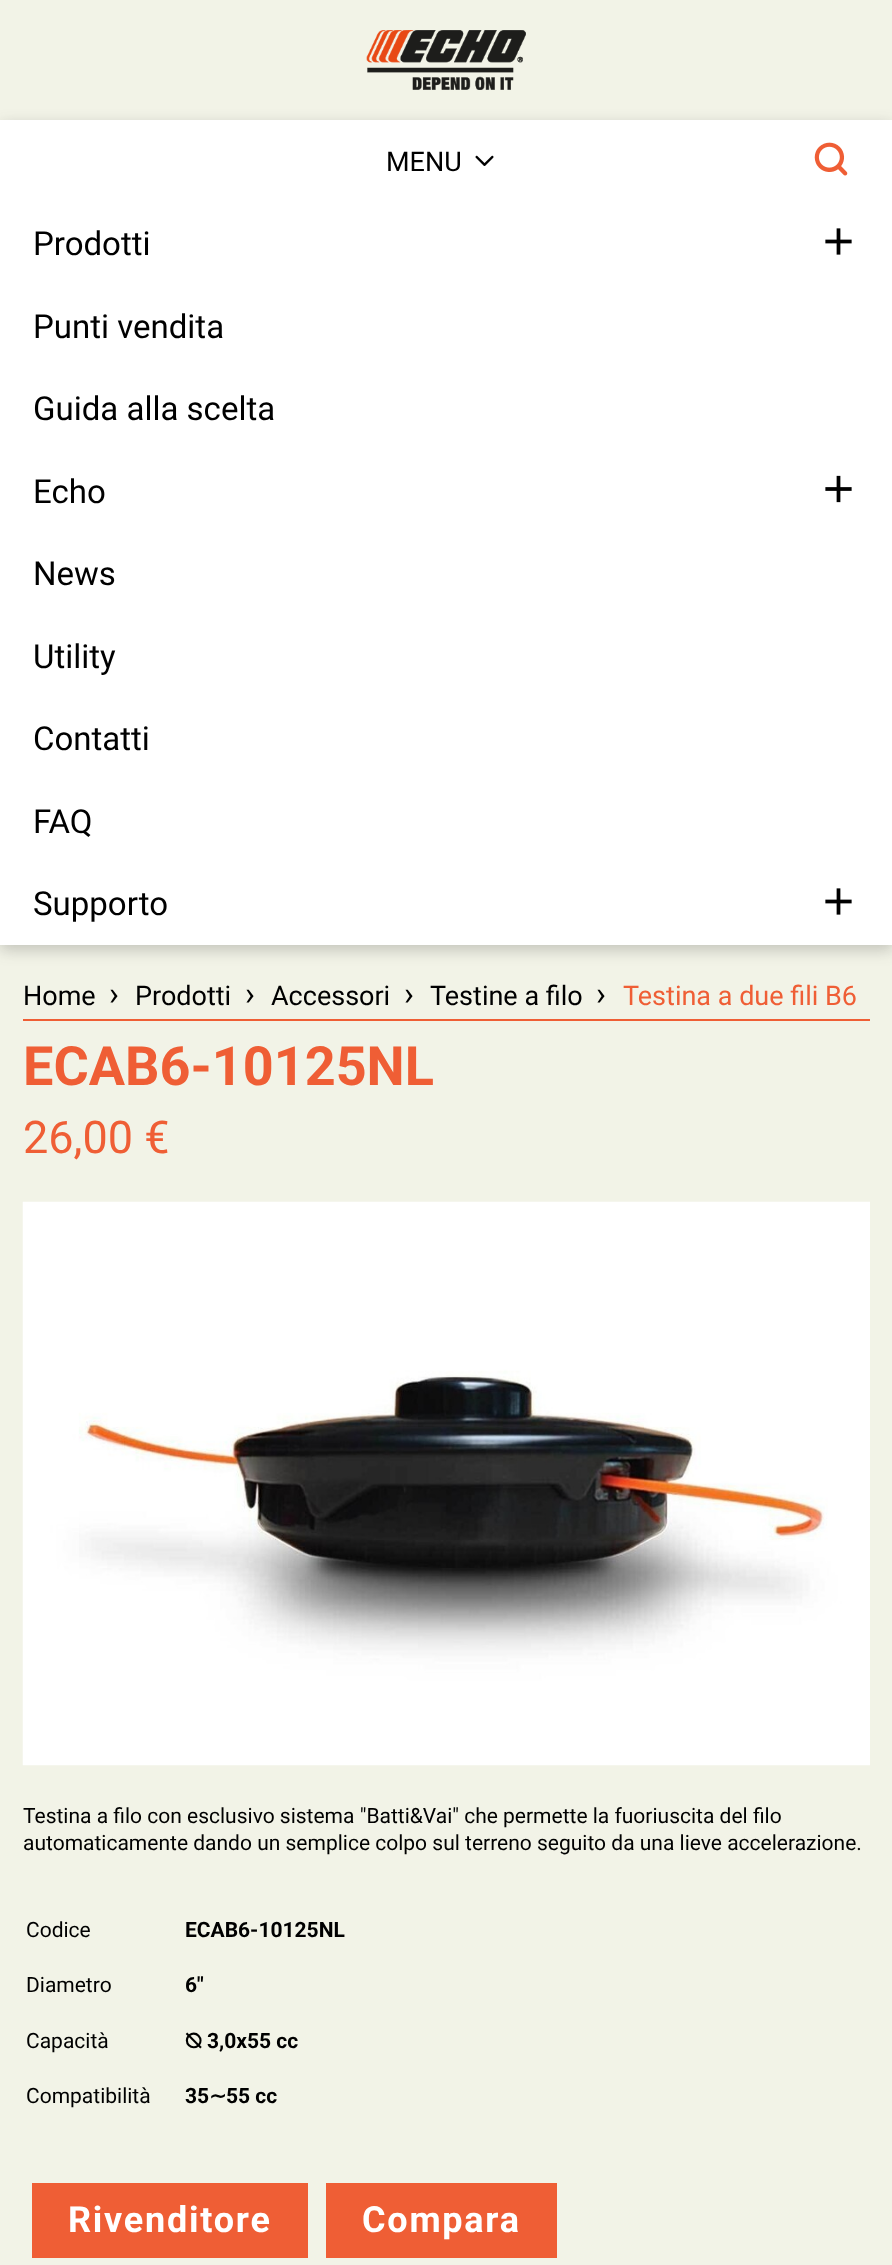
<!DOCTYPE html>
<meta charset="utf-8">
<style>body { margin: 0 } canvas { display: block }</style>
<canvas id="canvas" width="892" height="2265"></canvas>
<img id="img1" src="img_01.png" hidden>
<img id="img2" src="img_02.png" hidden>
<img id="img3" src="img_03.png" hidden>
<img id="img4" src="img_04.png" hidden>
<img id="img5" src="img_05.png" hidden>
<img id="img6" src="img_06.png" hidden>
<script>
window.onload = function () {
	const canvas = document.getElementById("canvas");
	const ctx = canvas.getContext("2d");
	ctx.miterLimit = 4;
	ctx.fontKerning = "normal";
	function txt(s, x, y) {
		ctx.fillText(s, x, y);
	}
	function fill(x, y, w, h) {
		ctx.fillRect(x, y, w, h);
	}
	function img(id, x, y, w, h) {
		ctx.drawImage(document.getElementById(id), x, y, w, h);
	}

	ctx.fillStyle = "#F2F3E7";
	fill(0, 0, 892, 2265);
	img("img1", 366, 30, 160, 60);
	ctx.fillStyle = "rgba(51, 51, 51, 0.25)";
	ctx.filter = "blur(7.5px)";
	ctx.beginPath();
	ctx.rect(0, 125, 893, 825);
	ctx.fill();
	ctx.filter = "none";
	ctx.fillStyle = "#FFFFFF";
	fill(0, 120, 892, 825);
	img("img2", 475, 155, 19, 11);
	img("img3", 825, 228, 27, 27);
	img("img4", 825, 475, 27, 28);
	img("img3", 825, 888, 27, 27);
	img("img5", 814, 142, 34, 34);
	ctx.fillStyle = "#EF5E35";
	fill(23, 1019, 847, 2);
	img("img6", 22, 1201, 848, 565);
	fill(32, 2183, 276, 75);
	fill(326, 2183, 231, 75);
	ctx.font = "27px Roboto";
	ctx.fillStyle = "#000000";
	txt("MENU", 386, 171);
	ctx.font = "33px Roboto";
	txt("Prodotti", 33, 255);
	txt("Punti vendita", 33, 338);
	txt("Guida alla scelta", 33, 420);
	txt("Echo", 33, 503);
	txt("News", 33, 585);
	txt("Utility", 33, 668);
	txt("Contatti", 33, 750);
	txt("FAQ", 33, 833);
	txt("Supporto", 33, 915);
	ctx.font = "27px Roboto";
	txt("Home", 23, 1005);
	ctx.font = "33px Roboto";
	txt("›", 109, 1005);
	ctx.font = "27px Roboto";
	txt("Prodotti", 135, 1005);
	ctx.font = "33px Roboto";
	txt("›", 245, 1005);
	ctx.font = "27px Roboto";
	txt("Accessori", 271, 1005);
	ctx.font = "33px Roboto";
	txt("›", 404, 1005);
	ctx.font = "27px Roboto";
	txt("Testine a filo", 430, 1005);
	ctx.font = "33px Roboto";
	txt("›", 596, 1005);
	ctx.font = "27px Roboto";
	ctx.fillStyle = "#EF5E35";
	txt("Testina a due fili B6", 623, 1005);
	ctx.font = "bold 54px Roboto";
	txt("ECAB6-10125NL", 23, 1085);
	ctx.font = "45px Roboto";
	txt("26,00 €", 23, 1153);
	ctx.font = "21px Roboto";
	ctx.fillStyle = "#000000";
	txt("Testina a filo con esclusivo sistema \"Batti&Vai\" che permette la fuoriuscita del filo", 23, 1823);
	txt("automaticamente dando un semplice colpo sul terreno seguito da una lieve accelerazione.", 23, 1850);
	txt("Codice", 26, 1937);
	ctx.font = "bold 21px Roboto";
	txt("ECAB6-10125NL", 185, 1937);
	ctx.font = "21px Roboto";
	txt("Diametro", 26, 1992);
	ctx.font = "bold 21px Roboto";
	txt("6\"", 185, 1992);
	ctx.font = "21px Roboto";
	txt("Capacità", 26, 2048);
	ctx.font = "bold 21px FreeSans";
	txt("⦰", 185, 2048);
	ctx.font = "bold 21px Roboto";
	txt("3,0x55 cc", 207, 2048);
	ctx.font = "21px Roboto";
	txt("Compatibilità", 26, 2103);
	ctx.font = "bold 21px Roboto";
	txt("35", 185, 2103);
	ctx.font = "bold 21px DejaVu Sans";
	txt("∼", 209, 2103);
	ctx.font = "bold 21px Roboto";
	txt("55 cc", 226, 2103);
	ctx.letterSpacing = "1.75px";
	ctx.font = "bold 36px Roboto";
	ctx.fillStyle = "#FFFFFF";
	txt("Rivenditore", 68, 2232);
	txt("Compara", 362, 2232);
};
</script>
